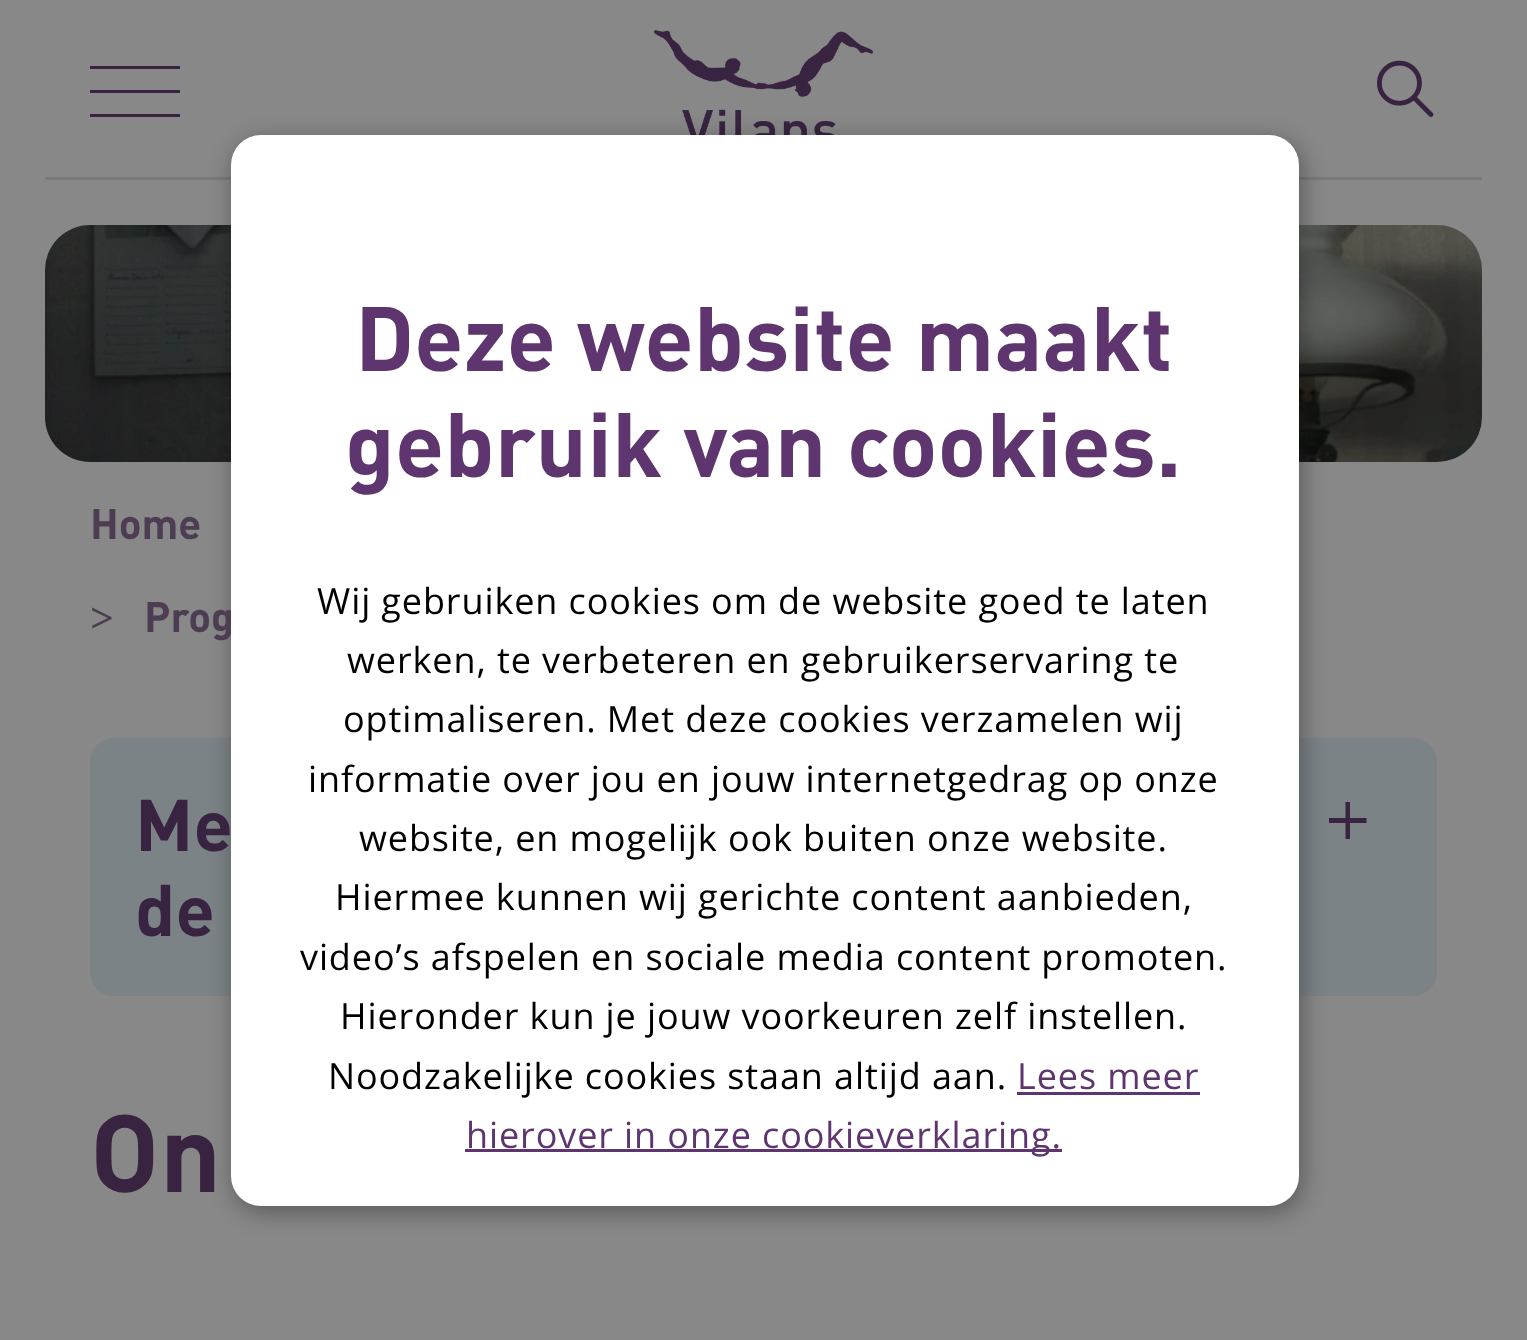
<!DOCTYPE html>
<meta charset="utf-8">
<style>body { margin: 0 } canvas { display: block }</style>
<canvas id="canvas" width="1527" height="1340"></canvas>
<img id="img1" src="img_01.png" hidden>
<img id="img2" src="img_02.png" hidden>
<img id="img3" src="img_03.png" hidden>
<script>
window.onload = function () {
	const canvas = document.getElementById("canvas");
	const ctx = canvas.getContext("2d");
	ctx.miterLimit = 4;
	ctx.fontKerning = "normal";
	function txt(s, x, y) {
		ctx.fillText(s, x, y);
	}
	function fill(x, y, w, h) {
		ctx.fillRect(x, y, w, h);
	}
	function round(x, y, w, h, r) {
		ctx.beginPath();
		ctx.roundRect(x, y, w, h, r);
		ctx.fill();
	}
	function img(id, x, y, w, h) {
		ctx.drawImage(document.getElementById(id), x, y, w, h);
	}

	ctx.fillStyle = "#888888";
	fill(0, 0, 1527, 1340);
	ctx.fillStyle = "#7A7A7A";
	fill(45, 177, 1437, 3);
	ctx.fillStyle = "#382340";
	fill(90, 90, 90, 3);
	fill(90, 66, 90, 3);
	fill(90, 114, 90, 3);
	img("img1", 654, 30, 219, 105);
	img("img2", 1377, 60, 57, 57);
	img("img3", 45, 225, 1437, 237);
	ctx.fillStyle = "#7C8387";
	round(90, 738, 1347, 258, 24);
	ctx.fillStyle = "#382340";
	ctx.beginPath();
	ctx.moveTo(1366.5, 823);
	ctx.lineTo(1350, 823);
	ctx.lineTo(1350, 839);
	ctx.lineTo(1345.5, 839);
	ctx.lineTo(1345.5, 823);
	ctx.lineTo(1329, 823);
	ctx.lineTo(1329, 818);
	ctx.lineTo(1345.5, 818);
	ctx.lineTo(1345.5, 802);
	ctx.lineTo(1350, 802);
	ctx.lineTo(1350, 818);
	ctx.lineTo(1366.5, 818);
	ctx.closePath();
	ctx.fill();
	ctx.fillStyle = "rgba(0, 0, 0, 0.35)";
	ctx.filter = "blur(12px)";
	ctx.beginPath();
	ctx.roundRect(234, 141, 1068, 1071, 30);
	ctx.fill();
	ctx.filter = "none";
	ctx.font = "bold 42px DIN";
	ctx.fillStyle = "#4C3D52";
	txt("Home", 90, 539);
	ctx.font = "bold 42px Liberation Serif";
	txt(">", 90, 632);
	ctx.font = "bold 42px DIN";
	txt("Prog", 144, 632);
	ctx.font = "bold 72px DIN";
	ctx.fillStyle = "#382340";
	txt("Me", 135, 851);
	txt("de", 135, 936);
	ctx.font = "bold 108px DIN";
	txt("On", 90, 1192);
	ctx.fillStyle = "#FFFFFF";
	round(231, 135, 1068, 1071, 30);
	ctx.font = "bold 90px DIN";
	ctx.fillStyle = "#5E356F";
	txt("Deze website maakt", 355, 371);
	txt("gebruik van cookies.", 345, 477);
	ctx.letterSpacing = "0.9px";
	ctx.font = "36px Open Sans";
	ctx.fillStyle = "#000000";
	txt("Wij gebruiken cookies om de website goed te laten", 317, 614);
	txt("werken, te verbeteren en gebruikerservaring te", 347, 673);
	txt("optimaliseren. Met deze cookies verzamelen wij", 343, 732);
	txt("informatie over jou en jouw internetgedrag op onze", 308, 792);
	txt("website, en mogelijk ook buiten onze website.", 359, 851);
	txt("Hiermee kunnen wij gerichte content aanbieden,", 335, 910);
	txt("video’s afspelen en sociale media content promoten.", 300, 970);
	txt("Hieronder kun je jouw voorkeuren zelf instellen.", 340, 1029);
	txt("Noodzakelijke cookies staan altijd aan.", 328, 1089);
	ctx.fillStyle = "#5E356F";
	txt("Lees meer", 1017, 1089);
	fill(1017, 1092, 183, 3);
	fill(465, 1149, 597, 3);
	txt("hierover in onze cookieverklaring.", 466, 1148);
};
</script>
